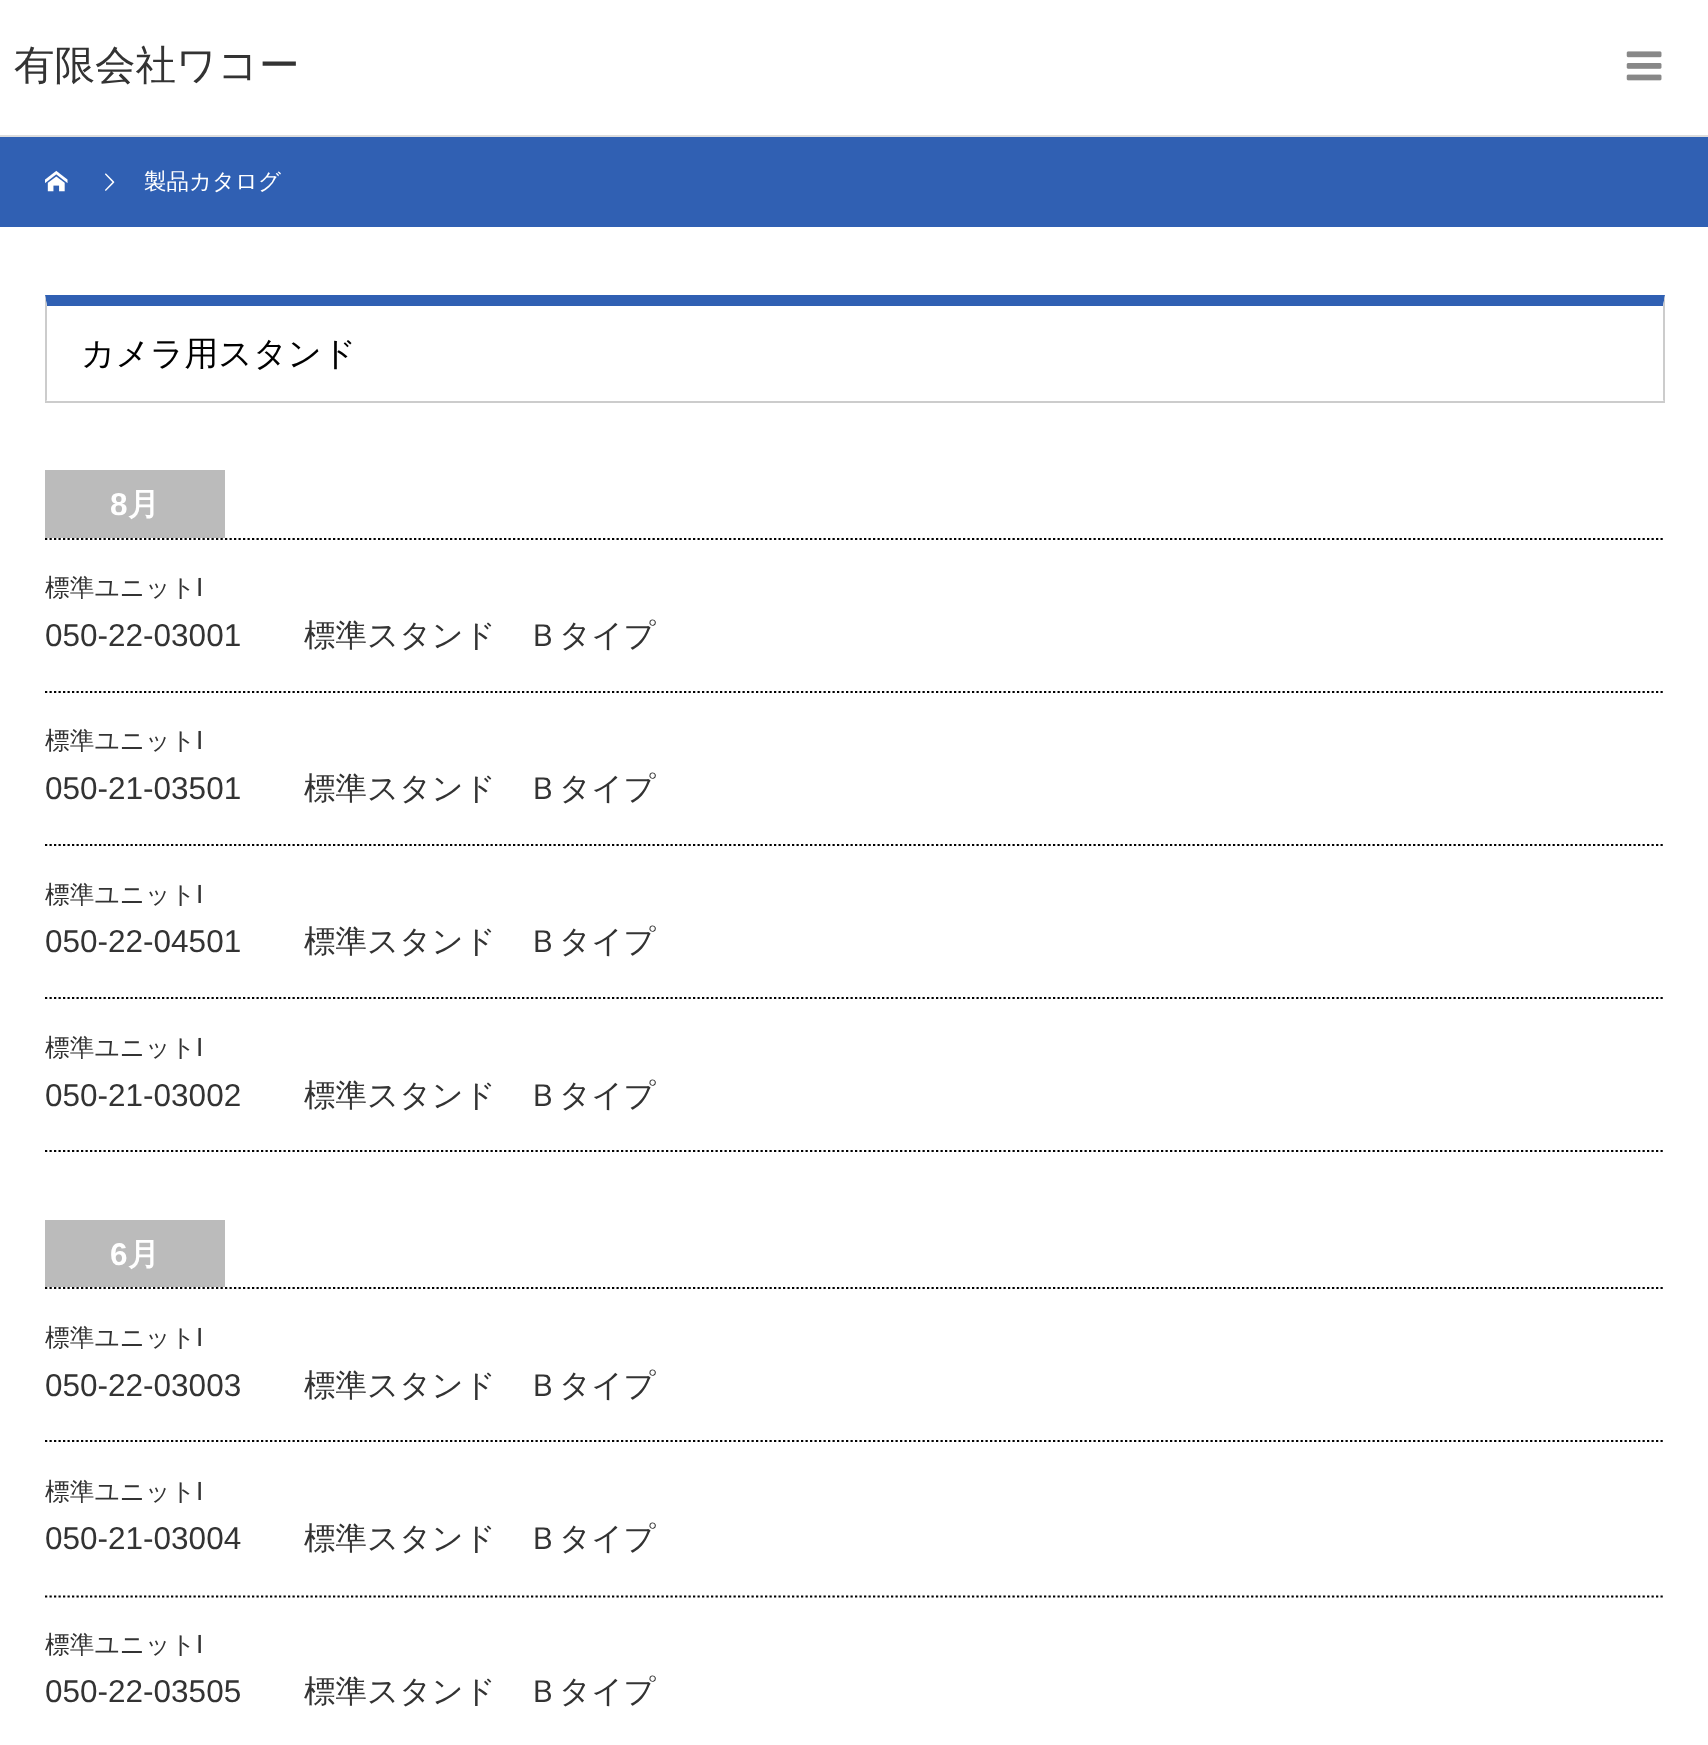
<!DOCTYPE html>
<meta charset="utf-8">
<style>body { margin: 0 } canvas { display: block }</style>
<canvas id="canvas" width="1708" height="1745"></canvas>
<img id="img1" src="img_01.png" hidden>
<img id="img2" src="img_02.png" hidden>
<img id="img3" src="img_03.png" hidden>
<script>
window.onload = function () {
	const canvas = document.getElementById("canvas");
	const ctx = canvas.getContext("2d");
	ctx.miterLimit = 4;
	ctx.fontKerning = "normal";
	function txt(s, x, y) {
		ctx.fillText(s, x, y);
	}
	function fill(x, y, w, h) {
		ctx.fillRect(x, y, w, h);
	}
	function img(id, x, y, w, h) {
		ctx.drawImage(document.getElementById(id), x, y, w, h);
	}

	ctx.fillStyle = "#FFFFFF";
	fill(0, 0, 1708, 1745);
	ctx.fillStyle = "#DDDDDD";
	fill(0, 135, 1708, 2);
	img("img1", 1626, 51, 36, 30);
	ctx.fillStyle = "#3060B3";
	fill(0, 137, 1708, 90);
	img("img2", 45, 170, 23, 22);
	img("img3", 105, 173, 10, 18);
	ctx.beginPath();
	ctx.moveTo(45, 295);
	ctx.lineTo(1665, 295);
	ctx.lineTo(1663, 306);
	ctx.lineTo(47, 306);
	ctx.closePath();
	ctx.fill();
	ctx.fillStyle = "#CCCCCC";
	ctx.beginPath();
	ctx.moveTo(1665, 295);
	ctx.lineTo(1665, 403);
	ctx.lineTo(1663, 400);
	ctx.lineTo(1663, 306);
	ctx.closePath();
	ctx.fill();
	fill(45, 401, 1620, 2);
	ctx.beginPath();
	ctx.moveTo(45, 403);
	ctx.lineTo(45, 295);
	ctx.lineTo(47, 306);
	ctx.lineTo(47, 400);
	ctx.closePath();
	ctx.fill();
	ctx.beginPath();
	ctx.moveTo(45, 539);
	ctx.lineTo(1665, 539);
	ctx.strokeStyle = "#000000";
	ctx.lineWidth = 2.2;
	ctx.setLineDash([2.25, 2.25]);
	ctx.stroke();
	ctx.fillStyle = "#BBBBBB";
	fill(45, 470, 180, 68);
	ctx.fillStyle = "#FFFFFF";
	fill(45, 540, 1618, 1);
	ctx.beginPath();
	ctx.moveTo(45, 692);
	ctx.lineTo(1665, 692);
	ctx.stroke();
	ctx.beginPath();
	ctx.moveTo(45, 845);
	ctx.lineTo(1665, 845);
	ctx.stroke();
	ctx.beginPath();
	ctx.moveTo(45, 998);
	ctx.lineTo(1665, 998);
	ctx.stroke();
	ctx.save();
	ctx.beginPath();
	ctx.rect(45, 540, 1620, 612);
	ctx.clip();
	ctx.beginPath();
	ctx.moveTo(45, 1151);
	ctx.lineTo(1665, 1151);
	ctx.stroke();
	ctx.restore();
	ctx.beginPath();
	ctx.moveTo(45, 1288);
	ctx.lineTo(1665, 1288);
	ctx.stroke();
	ctx.fillStyle = "#BBBBBB";
	fill(45, 1220, 180, 67);
	ctx.fillStyle = "#FFFFFF";
	fill(45, 1289, 1618, 1);
	ctx.beginPath();
	ctx.moveTo(45, 1441);
	ctx.lineTo(1665, 1441);
	ctx.stroke();
	ctx.beginPath();
	ctx.moveTo(45, 1596.5);
	ctx.lineTo(1665, 1596.5);
	ctx.stroke();
	ctx.font = "500 40.5px WenQuanYi Zen Hei";
	ctx.fillStyle = "#333333";
	txt("有限会社ワコー", 14, 79);
	ctx.font = "500 22.5px WenQuanYi Zen Hei";
	ctx.fillStyle = "#FFFFFF";
	txt("製品カタログ", 144, 189);
	ctx.font = "500 33.75px WenQuanYi Zen Hei";
	ctx.fillStyle = "#000000";
	txt("カメラ用スタンド", 81, 365);
	ctx.font = "bold 31.5px Liberation Sans";
	ctx.fillStyle = "#FFFFFF";
	txt("8", 110, 515);
	ctx.font = "bold 31.5px WenQuanYi Zen Hei";
	txt("月", 128, 515);
	ctx.font = "500 24.75px WenQuanYi Zen Hei";
	ctx.fillStyle = "#333333";
	txt("標準ユニット", 45, 596);
	ctx.font = "24.75px DejaVu Sans";
	txt("Ⅰ", 196, 596);
	ctx.font = "31.5px Liberation Sans";
	txt("050-22-03001", 45, 646);
	ctx.font = "500 31.5px WenQuanYi Zen Hei";
	txt("標準スタンド　Ｂタイプ", 304, 646);
	ctx.font = "500 24.75px WenQuanYi Zen Hei";
	txt("標準ユニット", 45, 749);
	ctx.font = "24.75px DejaVu Sans";
	txt("Ⅰ", 196, 749);
	ctx.font = "31.5px Liberation Sans";
	txt("050-21-03501", 45, 799);
	ctx.font = "500 31.5px WenQuanYi Zen Hei";
	txt("標準スタンド　Ｂタイプ", 304, 799);
	ctx.font = "500 24.75px WenQuanYi Zen Hei";
	txt("標準ユニット", 45, 903);
	ctx.font = "24.75px DejaVu Sans";
	txt("Ⅰ", 196, 903);
	ctx.font = "31.5px Liberation Sans";
	txt("050-22-04501", 45, 952);
	ctx.font = "500 31.5px WenQuanYi Zen Hei";
	txt("標準スタンド　Ｂタイプ", 304, 952);
	ctx.font = "500 24.75px WenQuanYi Zen Hei";
	txt("標準ユニット", 45, 1056);
	ctx.font = "24.75px DejaVu Sans";
	txt("Ⅰ", 196, 1056);
	ctx.font = "31.5px Liberation Sans";
	txt("050-21-03002", 45, 1106);
	ctx.font = "500 31.5px WenQuanYi Zen Hei";
	txt("標準スタンド　Ｂタイプ", 304, 1106);
	ctx.font = "bold 31.5px Liberation Sans";
	ctx.fillStyle = "#FFFFFF";
	txt("6", 110, 1265);
	ctx.font = "bold 31.5px WenQuanYi Zen Hei";
	txt("月", 128, 1265);
	ctx.font = "500 24.75px WenQuanYi Zen Hei";
	ctx.fillStyle = "#333333";
	txt("標準ユニット", 45, 1346);
	ctx.font = "24.75px DejaVu Sans";
	txt("Ⅰ", 196, 1346);
	ctx.font = "31.5px Liberation Sans";
	txt("050-22-03003", 45, 1396);
	ctx.font = "500 31.5px WenQuanYi Zen Hei";
	txt("標準スタンド　Ｂタイプ", 304, 1396);
	ctx.font = "500 24.75px WenQuanYi Zen Hei";
	txt("標準ユニット", 45, 1500);
	ctx.font = "24.75px DejaVu Sans";
	txt("Ⅰ", 196, 1500);
	ctx.font = "31.5px Liberation Sans";
	txt("050-21-03004", 45, 1549);
	ctx.font = "500 31.5px WenQuanYi Zen Hei";
	txt("標準スタンド　Ｂタイプ", 304, 1549);
	ctx.font = "500 24.75px WenQuanYi Zen Hei";
	txt("標準ユニット", 45, 1653);
	ctx.font = "24.75px DejaVu Sans";
	txt("Ⅰ", 196, 1653);
	ctx.font = "31.5px Liberation Sans";
	txt("050-22-03505", 45, 1702);
	ctx.font = "500 31.5px WenQuanYi Zen Hei";
	txt("標準スタンド　Ｂタイプ", 304, 1702);
};
</script>
